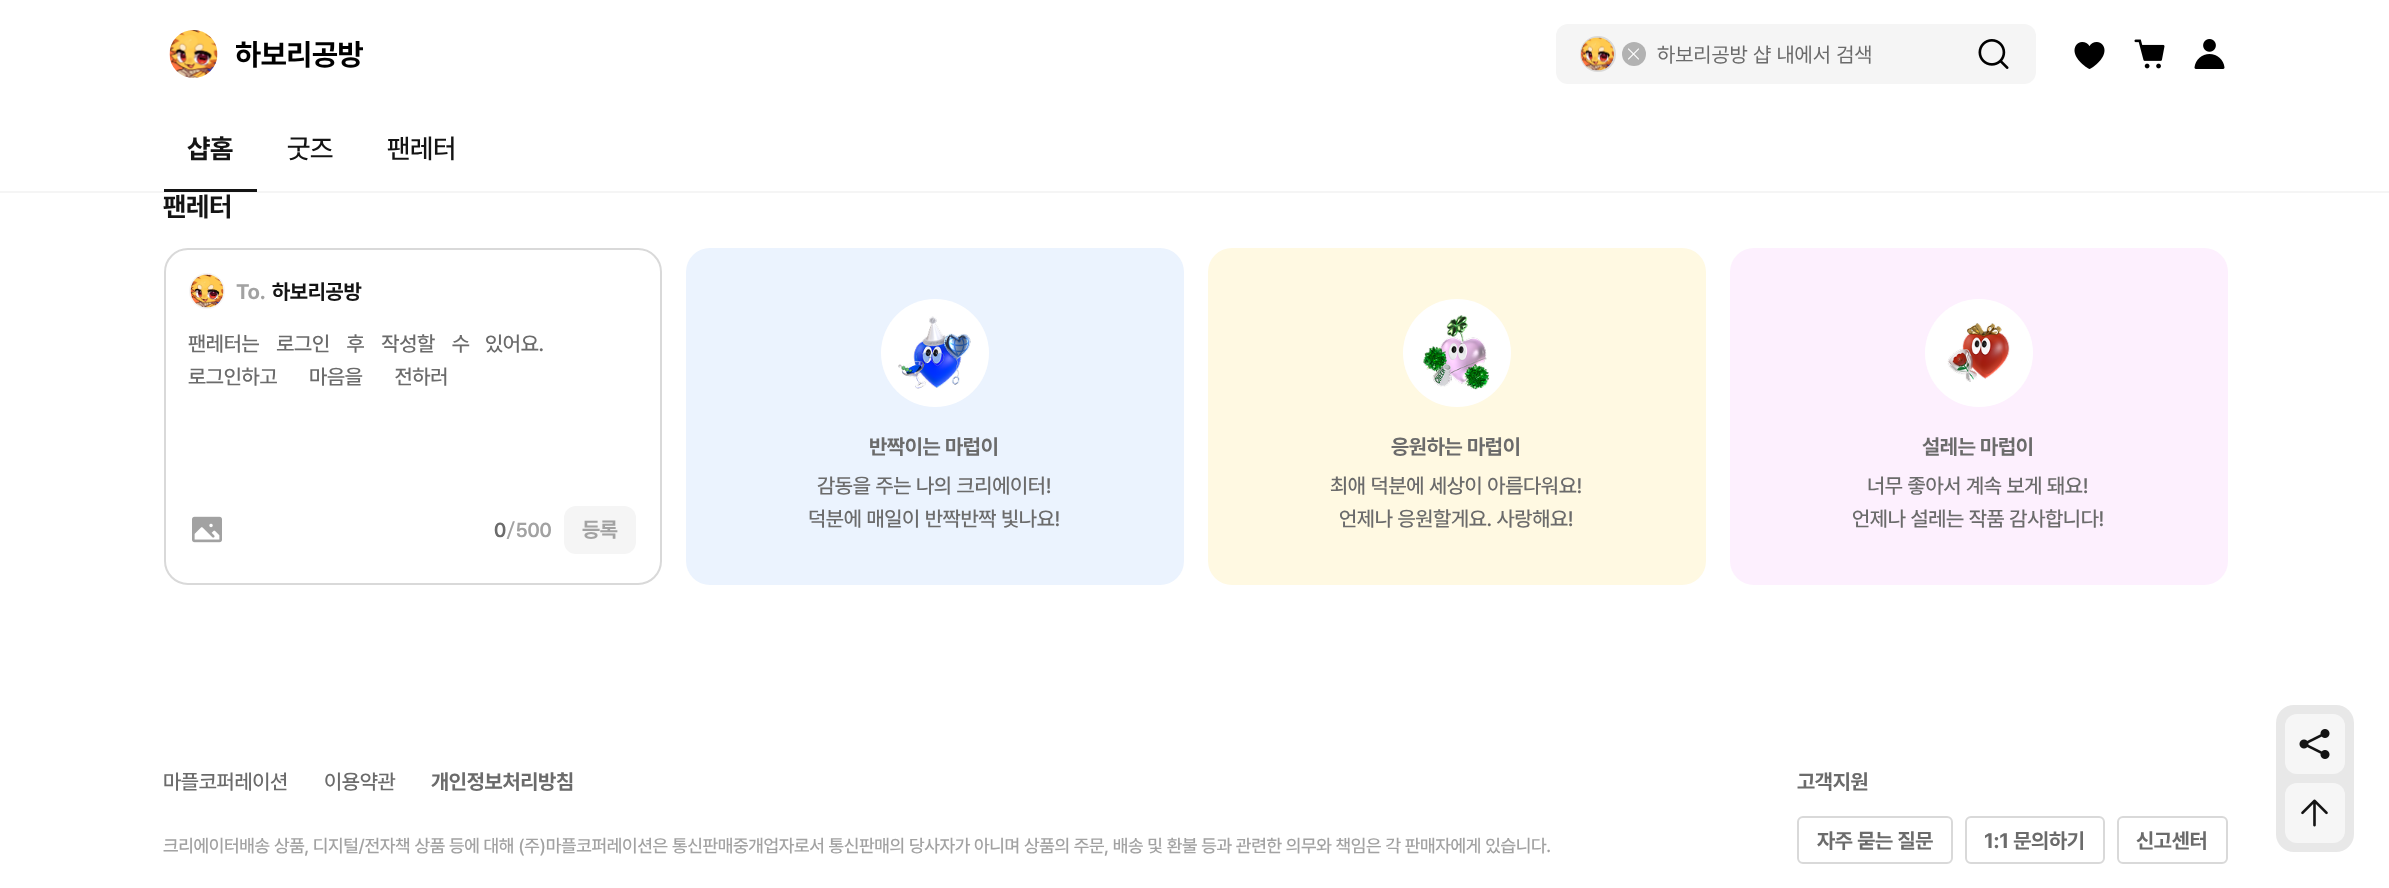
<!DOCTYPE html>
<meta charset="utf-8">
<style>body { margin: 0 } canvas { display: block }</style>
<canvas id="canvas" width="2389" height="888"></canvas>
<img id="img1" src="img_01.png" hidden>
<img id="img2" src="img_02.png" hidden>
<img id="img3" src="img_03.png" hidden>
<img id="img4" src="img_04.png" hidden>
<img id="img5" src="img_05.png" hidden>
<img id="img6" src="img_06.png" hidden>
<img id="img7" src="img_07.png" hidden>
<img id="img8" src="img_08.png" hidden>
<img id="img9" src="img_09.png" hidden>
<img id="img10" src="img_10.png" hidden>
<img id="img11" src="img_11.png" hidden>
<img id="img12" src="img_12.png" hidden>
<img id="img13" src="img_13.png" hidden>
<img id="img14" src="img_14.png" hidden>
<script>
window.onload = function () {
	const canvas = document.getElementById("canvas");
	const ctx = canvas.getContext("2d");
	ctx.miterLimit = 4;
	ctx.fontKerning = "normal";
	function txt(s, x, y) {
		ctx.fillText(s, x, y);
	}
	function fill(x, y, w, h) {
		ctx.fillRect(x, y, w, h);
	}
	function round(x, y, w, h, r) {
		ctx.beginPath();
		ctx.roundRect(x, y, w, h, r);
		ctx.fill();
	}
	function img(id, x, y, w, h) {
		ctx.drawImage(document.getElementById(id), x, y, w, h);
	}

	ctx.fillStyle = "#FFFFFF";
	fill(0, 0, 2389, 888);
	img("img1", 169, 30, 49, 48);
	ctx.fillStyle = "#F5F5F5";
	round(1556, 24, 480, 60, 12);
	ctx.beginPath();
	ctx.arc(1598, 54, 17, 0, Math.PI * 2);
	ctx.strokeStyle = "#D9D9D9";
	ctx.lineWidth = 2;
	ctx.stroke();
	img("img2", 1581, 37, 33, 34);
	ctx.fillStyle = "#B2B2B2";
	ctx.beginPath();
	ctx.arc(1634, 54, 12, 0, Math.PI * 2);
	ctx.fill();
	img("img3", 1628, 48, 11, 12);
	img("img4", 1978, 39, 31, 30);
	img("img5", 2074, 42, 31, 27);
	img("img6", 2134, 39, 31, 30);
	img("img7", 2194, 39, 31, 30);
	ctx.fillStyle = "#F5F5F5";
	fill(0, 191, 2389, 2);
	ctx.fillStyle = "#141414";
	fill(164, 189, 93, 3);
	ctx.beginPath();
	ctx.roundRect(165, 249, 496, 335, 23);
	ctx.stroke();
	ctx.beginPath();
	ctx.arc(207, 291, 17, 0, Math.PI * 2);
	ctx.strokeStyle = "#F5F5F5";
	ctx.stroke();
	img("img8", 190, 274, 34, 34);
	img("img9", 192, 516, 30, 27);
	ctx.fillStyle = "#F5F5F5";
	round(564, 506, 72, 48, 12);
	ctx.fillStyle = "#EBF3FE";
	round(686, 248, 498, 337, 24);
	ctx.fillStyle = "#FFFFFF";
	ctx.beginPath();
	ctx.arc(935, 353, 54, 0, Math.PI * 2);
	ctx.fill();
	img("img10", 898, 316, 73, 73);
	ctx.fillStyle = "#FFF9E2";
	round(1208, 248, 498, 337, 24);
	ctx.fillStyle = "#FFFFFF";
	ctx.beginPath();
	ctx.arc(1457, 353, 54, 0, Math.PI * 2);
	ctx.fill();
	img("img11", 1423, 315, 67, 75);
	ctx.fillStyle = "#FDF0FE";
	round(1730, 248, 498, 337, 24);
	ctx.fillStyle = "#FFFFFF";
	ctx.beginPath();
	ctx.arc(1979, 353, 54, 0, Math.PI * 2);
	ctx.fill();
	img("img12", 1947, 323, 63, 59);
	ctx.beginPath();
	ctx.roundRect(1798, 817, 154, 46, 5);
	ctx.strokeStyle = "#D9D9D9";
	ctx.stroke();
	ctx.beginPath();
	ctx.roundRect(1966, 817, 138, 46, 5);
	ctx.stroke();
	ctx.beginPath();
	ctx.roundRect(2118, 817, 109, 46, 5);
	ctx.stroke();
	ctx.fillStyle = "#E8E8E8";
	round(2276, 705, 78, 147, 18);
	ctx.fillStyle = "#F6F6F6";
	round(2285, 714, 60, 60, 12);
	img("img13", 2299, 729, 31, 30);
	round(2285, 783, 60, 60, 12);
	img("img14", 2301, 799, 27, 28);
	ctx.save();
	ctx.beginPath();
	ctx.rect(236, 33, 127, 42);
	ctx.clip();
	ctx.letterSpacing = "-0.3px";
	ctx.font = "bold 30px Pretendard";
	ctx.fillStyle = "#000000";
	txt("하보리공방", 235, 65);
	ctx.restore();
	ctx.font = "21px Pretendard";
	ctx.fillStyle = "#6B6B6B";
	txt("하보리공방 샵 내에서 검색", 1657, 62);
	ctx.letterSpacing = "-0.3px";
	ctx.font = "bold 27px Pretendard";
	ctx.fillStyle = "#141414";
	txt("샵홈", 187, 158);
	ctx.font = "500 27px Pretendard";
	txt("굿즈", 287, 158);
	txt("팬레터", 387, 158);
	ctx.font = "bold 27px Pretendard";
	txt("팬레터", 163, 216);
	ctx.font = "bold 21px Pretendard";
	ctx.fillStyle = "#A2A2A2";
	txt("To.", 236, 299);
	ctx.fillStyle = "#141414";
	txt("하보리공방", 272, 299);
	ctx.wordSpacing = "12px";
	ctx.font = "500 21px Pretendard";
	ctx.fillStyle = "#6B6B6B";
	txt("팬레터는 로그인 후 작성할 수", 188, 351);
	ctx.wordSpacing = "0px";
	txt("있어요.", 485, 351);
	ctx.wordSpacing = "27px";
	txt("로그인하고 마음을 전하러", 188, 384);
	ctx.wordSpacing = "0px";
	ctx.font = "500 21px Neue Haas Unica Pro";
	txt("0", 494, 537);
	ctx.fillStyle = "#A2A2A2";
	txt("/500", 506, 537);
	ctx.font = "bold 21px Pretendard";
	txt("등록", 582, 537);
	ctx.fillStyle = "#6B6B6B";
	txt("반짝이는 마럽이", 869, 454);
	ctx.font = "500 21px Pretendard";
	txt("감동을 주는 나의 크리에이터!", 817, 493);
	txt("덕분에 매일이 반짝반짝 빛나요!", 808, 526);
	ctx.font = "bold 21px Pretendard";
	txt("응원하는 마럽이", 1391, 454);
	ctx.font = "500 21px Pretendard";
	txt("최애 덕분에 세상이 아름다워요!", 1330, 493);
	txt("언제나 응원할게요. 사랑해요!", 1339, 526);
	ctx.font = "bold 21px Pretendard";
	txt("설레는 마럽이", 1922, 454);
	ctx.font = "500 21px Pretendard";
	txt("너무 좋아서 계속 보게 돼요!", 1867, 493);
	txt("언제나 설레는 작품 감사합니다!", 1852, 526);
	txt("마플코퍼레이션", 163, 789);
	txt("이용약관", 324, 789);
	ctx.font = "bold 21px Pretendard";
	txt("개인정보처리방침", 431, 789);
	ctx.font = "500 18px Pretendard";
	ctx.fillStyle = "#A2A2A2";
	txt("크리에이터배송 상품, 디지털/전자책 상품 등에 대해 (주)마플코퍼레이션은 통신판매중개업자로서 통신판매의 당사자가 아니며 상품의 주문, 배송 및 환불 등과 관련한 의무와 책임은 각 판매자에게 있습니다.", 163, 852);
	ctx.font = "bold 21px Pretendard";
	ctx.fillStyle = "#6B6B6B";
	txt("고객지원", 1797, 789);
	txt("자주 묻는 질문", 1817, 848);
	txt("1:1 문의하기", 1984, 848);
	txt("신고센터", 2136, 848);
};
</script>
